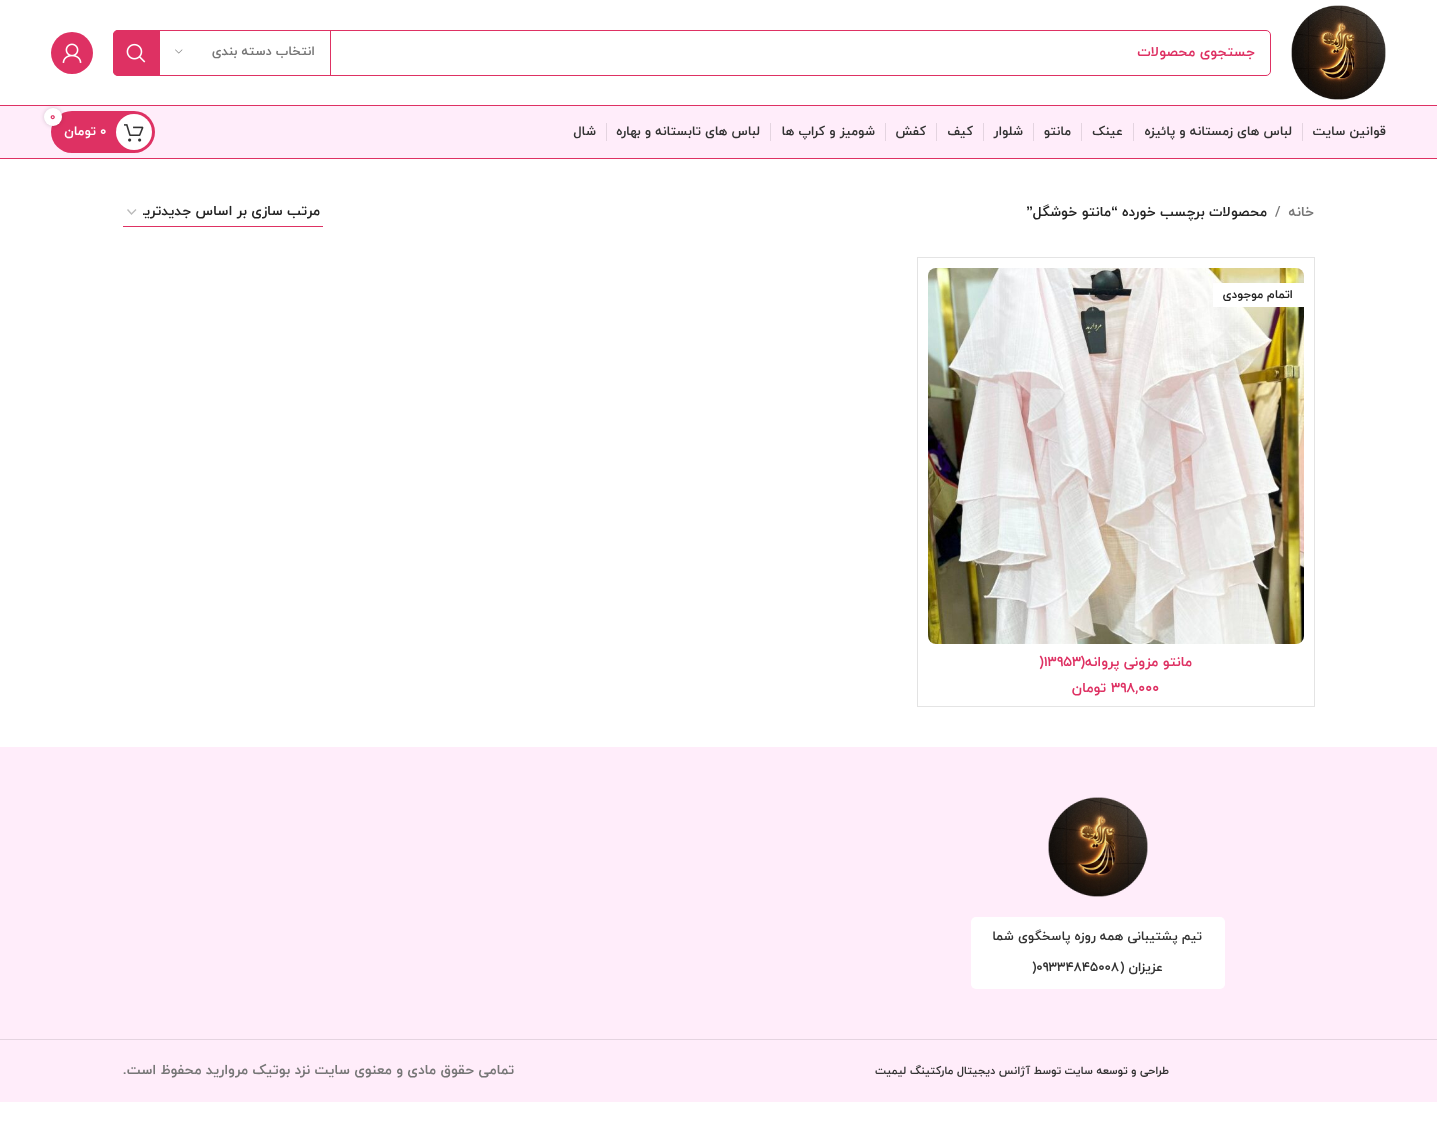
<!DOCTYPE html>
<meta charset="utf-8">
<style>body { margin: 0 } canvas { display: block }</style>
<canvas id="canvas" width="1437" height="1145"></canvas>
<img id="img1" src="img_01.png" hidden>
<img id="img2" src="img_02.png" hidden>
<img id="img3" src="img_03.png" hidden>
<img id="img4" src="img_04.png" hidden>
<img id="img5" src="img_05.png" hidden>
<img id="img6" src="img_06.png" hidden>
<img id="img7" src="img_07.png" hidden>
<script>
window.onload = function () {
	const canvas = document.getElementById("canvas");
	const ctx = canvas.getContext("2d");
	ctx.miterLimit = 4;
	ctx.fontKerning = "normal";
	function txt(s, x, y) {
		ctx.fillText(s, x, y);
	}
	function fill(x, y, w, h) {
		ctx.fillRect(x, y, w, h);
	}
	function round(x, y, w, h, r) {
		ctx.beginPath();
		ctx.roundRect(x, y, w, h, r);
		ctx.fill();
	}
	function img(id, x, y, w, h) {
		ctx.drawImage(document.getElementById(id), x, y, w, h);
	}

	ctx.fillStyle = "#FFFFFF";
	fill(0, 0, 1437, 1145);
	ctx.fillStyle = "#DE3163";
	fill(0, 105, 1437, 1);
	img("img1", 1291, 5, 95, 95);
	ctx.beginPath();
	ctx.roundRect(113.5, 30.5, 1157, 45, 4.5);
	ctx.strokeStyle = "#DE3163";
	ctx.stroke();
	fill(330, 31, 1, 44);
	fill(159, 31, 1, 44);
	img("img2", 175, 49, 8, 5);
	ctx.beginPath();
	ctx.roundRect(113, 30, 46, 46, [5, 0, 0, 5]);
	ctx.fill();
	img("img3", 126, 43, 20, 20);
	ctx.beginPath();
	ctx.arc(72, 53, 21, 0, Math.PI * 2);
	ctx.fill();
	img("img4", 62, 43, 20, 20);
	ctx.fillStyle = "#FFEDFA";
	fill(0, 106, 1437, 52);
	ctx.fillStyle = "#DE3163";
	fill(0, 158, 1437, 1);
	ctx.fillStyle = "#E4D4E0";
	fill(1302, 123, 1, 18);
	fill(1133, 123, 1, 18);
	fill(1081, 123, 1, 18);
	fill(1033, 123, 1, 18);
	fill(983, 123, 1, 18);
	fill(936, 123, 1, 18);
	fill(885, 123, 1, 18);
	fill(770, 123, 1, 18);
	fill(606, 123, 1, 18);
	ctx.fillStyle = "#DE3163";
	round(51, 111, 104, 42, 21);
	ctx.fillStyle = "#FFFFFF";
	ctx.beginPath();
	ctx.arc(134, 132, 18, 0, Math.PI * 2);
	ctx.fill();
	ctx.fillStyle = "rgba(0, 0, 0, 0.17)";
	ctx.filter = "blur(2px)";
	ctx.beginPath();
	ctx.roundRect(44, 108, 18, 18, 9);
	ctx.fill();
	ctx.filter = "none";
	ctx.fillStyle = "#FFFFFF";
	ctx.beginPath();
	ctx.arc(53, 117, 9, 0, Math.PI * 2);
	ctx.fill();
	img("img5", 124, 124, 20, 18);
	ctx.beginPath();
	ctx.moveTo(127.5, 209.5);
	ctx.lineTo(131.5, 214);
	ctx.lineTo(136, 209.5);
	ctx.strokeStyle = "#BBBBBB";
	ctx.lineWidth = 1.4;
	ctx.stroke();
	ctx.fillStyle = "#DE3163";
	fill(123, 226, 200, 1);
	ctx.fillStyle = "#E4E4E4";
	fill(1314, 257, 1, 450);
	ctx.beginPath();
	ctx.moveTo(917, 257);
	ctx.lineTo(1314, 257);
	ctx.lineTo(1314, 258);
	ctx.lineTo(918, 258);
	ctx.closePath();
	ctx.fill();
	ctx.beginPath();
	ctx.moveTo(1314, 707);
	ctx.lineTo(917, 707);
	ctx.lineTo(918, 706);
	ctx.lineTo(1314, 706);
	ctx.closePath();
	ctx.fill();
	ctx.fillStyle = "rgba(0, 0, 0, 0.11)";
	ctx.beginPath();
	ctx.moveTo(917, 707);
	ctx.lineTo(917, 257);
	ctx.lineTo(918, 258);
	ctx.lineTo(918, 706);
	ctx.closePath();
	ctx.fill();
	img("img6", 928, 268, 376, 376);
	ctx.fillStyle = "#FFFFFF";
	fill(1213, 283, 91, 24);
	ctx.fillStyle = "#FFEDFA";
	fill(0, 747, 1437, 355);
	img("img7", 1048, 797, 100, 100);
	ctx.fillStyle = "#FFFFFF";
	round(971, 917, 254, 72, 5);
	ctx.fillStyle = "#E4D4E0";
	fill(0, 1039, 1437, 1);
	ctx.direction = "rtl";
	ctx.font = "bold 14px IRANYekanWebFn";
	ctx.fillStyle = "#DE3163";
	txt("جستجوی محصولات", 1255, 56);
	ctx.font = "bold 13px IRANYekanWebFn";
	ctx.fillStyle = "#767676";
	txt("انتخاب دسته بندی", 315, 55);
	ctx.fillStyle = "#333333";
	txt("قوانین سایت", 1386, 135);
	txt("لباس های زمستانه و پائیزه", 1292, 135);
	txt("عینک", 1123, 135);
	txt("مانتو", 1071, 135);
	txt("شلوار", 1023, 135);
	txt("کیف", 973, 135);
	txt("کفش", 926, 135);
	txt("شومیز و کراپ ها", 875, 135);
	txt("لباس های تابستانه و بهاره", 760, 135);
	txt("شال", 596, 135);
	ctx.direction = "ltr";
	ctx.font = "bold 11px IRANYekanWebFn";
	ctx.fillStyle = "#DE3163";
	txt("0", 50, 120);
	ctx.font = "bold 13px IRANYekanWebFn";
	ctx.fillStyle = "#FFFFFF";
	txt("۰", 100, 135);
	ctx.direction = "rtl";
	txt("تومان", 96, 135);
	ctx.font = "bold 14px IRANYekanWebFn";
	ctx.fillStyle = "#767676";
	txt("خانه", 1314, 216);
	ctx.direction = "ltr";
	txt("/", 1275, 216);
	ctx.direction = "rtl";
	ctx.fillStyle = "#242424";
	txt("محصولات برچسب خورده", 1267, 216);
	ctx.font = "bold 14px Liberation Sans";
	txt("“", 1118, 216);
	ctx.font = "bold 14px IRANYekanWebFn";
	txt("مانتو خوشگل", 1111, 216);
	ctx.font = "bold 14px Liberation Sans";
	txt("”", 1033, 216);
	ctx.save();
	ctx.beginPath();
	ctx.rect(143, 204, 178, 17);
	ctx.clip();
	ctx.font = "bold 14px IRANYekanWebFn";
	txt("مرتب سازی بر اساس جدیدترین", 320, 215);
	ctx.restore();
	ctx.font = "bold 12px IRANYekanWebFn";
	txt("اتمام موجودی", 1293, 298);
	ctx.font = "bold 14px IRANYekanWebFn";
	ctx.fillStyle = "#DE3163";
	txt("مانتو مزونی پروانه(", 1192, 666);
	ctx.direction = "ltr";
	txt(")۱۳۹۵۳", 1039, 666);
	txt("۳۹۸,۰۰۰", 1111, 692);
	ctx.direction = "rtl";
	txt("تومان", 1106, 692);
	ctx.font = "bold 13px IRANYekanWebFn";
	ctx.fillStyle = "#333333";
	txt("تیم پشتیبانی همه روزه پاسخگوی شما", 1202, 940);
	txt("عزیزان (", 1163, 971);
	ctx.direction = "ltr";
	txt(")۰۹۳۳۴۸۴۵۰۰۸", 1032, 971);
	ctx.direction = "rtl";
	ctx.font = "bold 11.2px IRANYekanWebFn";
	txt("طراحی و توسعه سایت توسط آژانس دیجیتال مارکتینگ لیمیت", 1169, 1074);
	ctx.font = "bold 14px IRANYekanWebFn";
	ctx.fillStyle = "#767676";
	txt("تمامی حقوق مادی و معنوی سایت نزد بوتیک مروارید محفوظ است.", 514, 1074);
};
</script>
